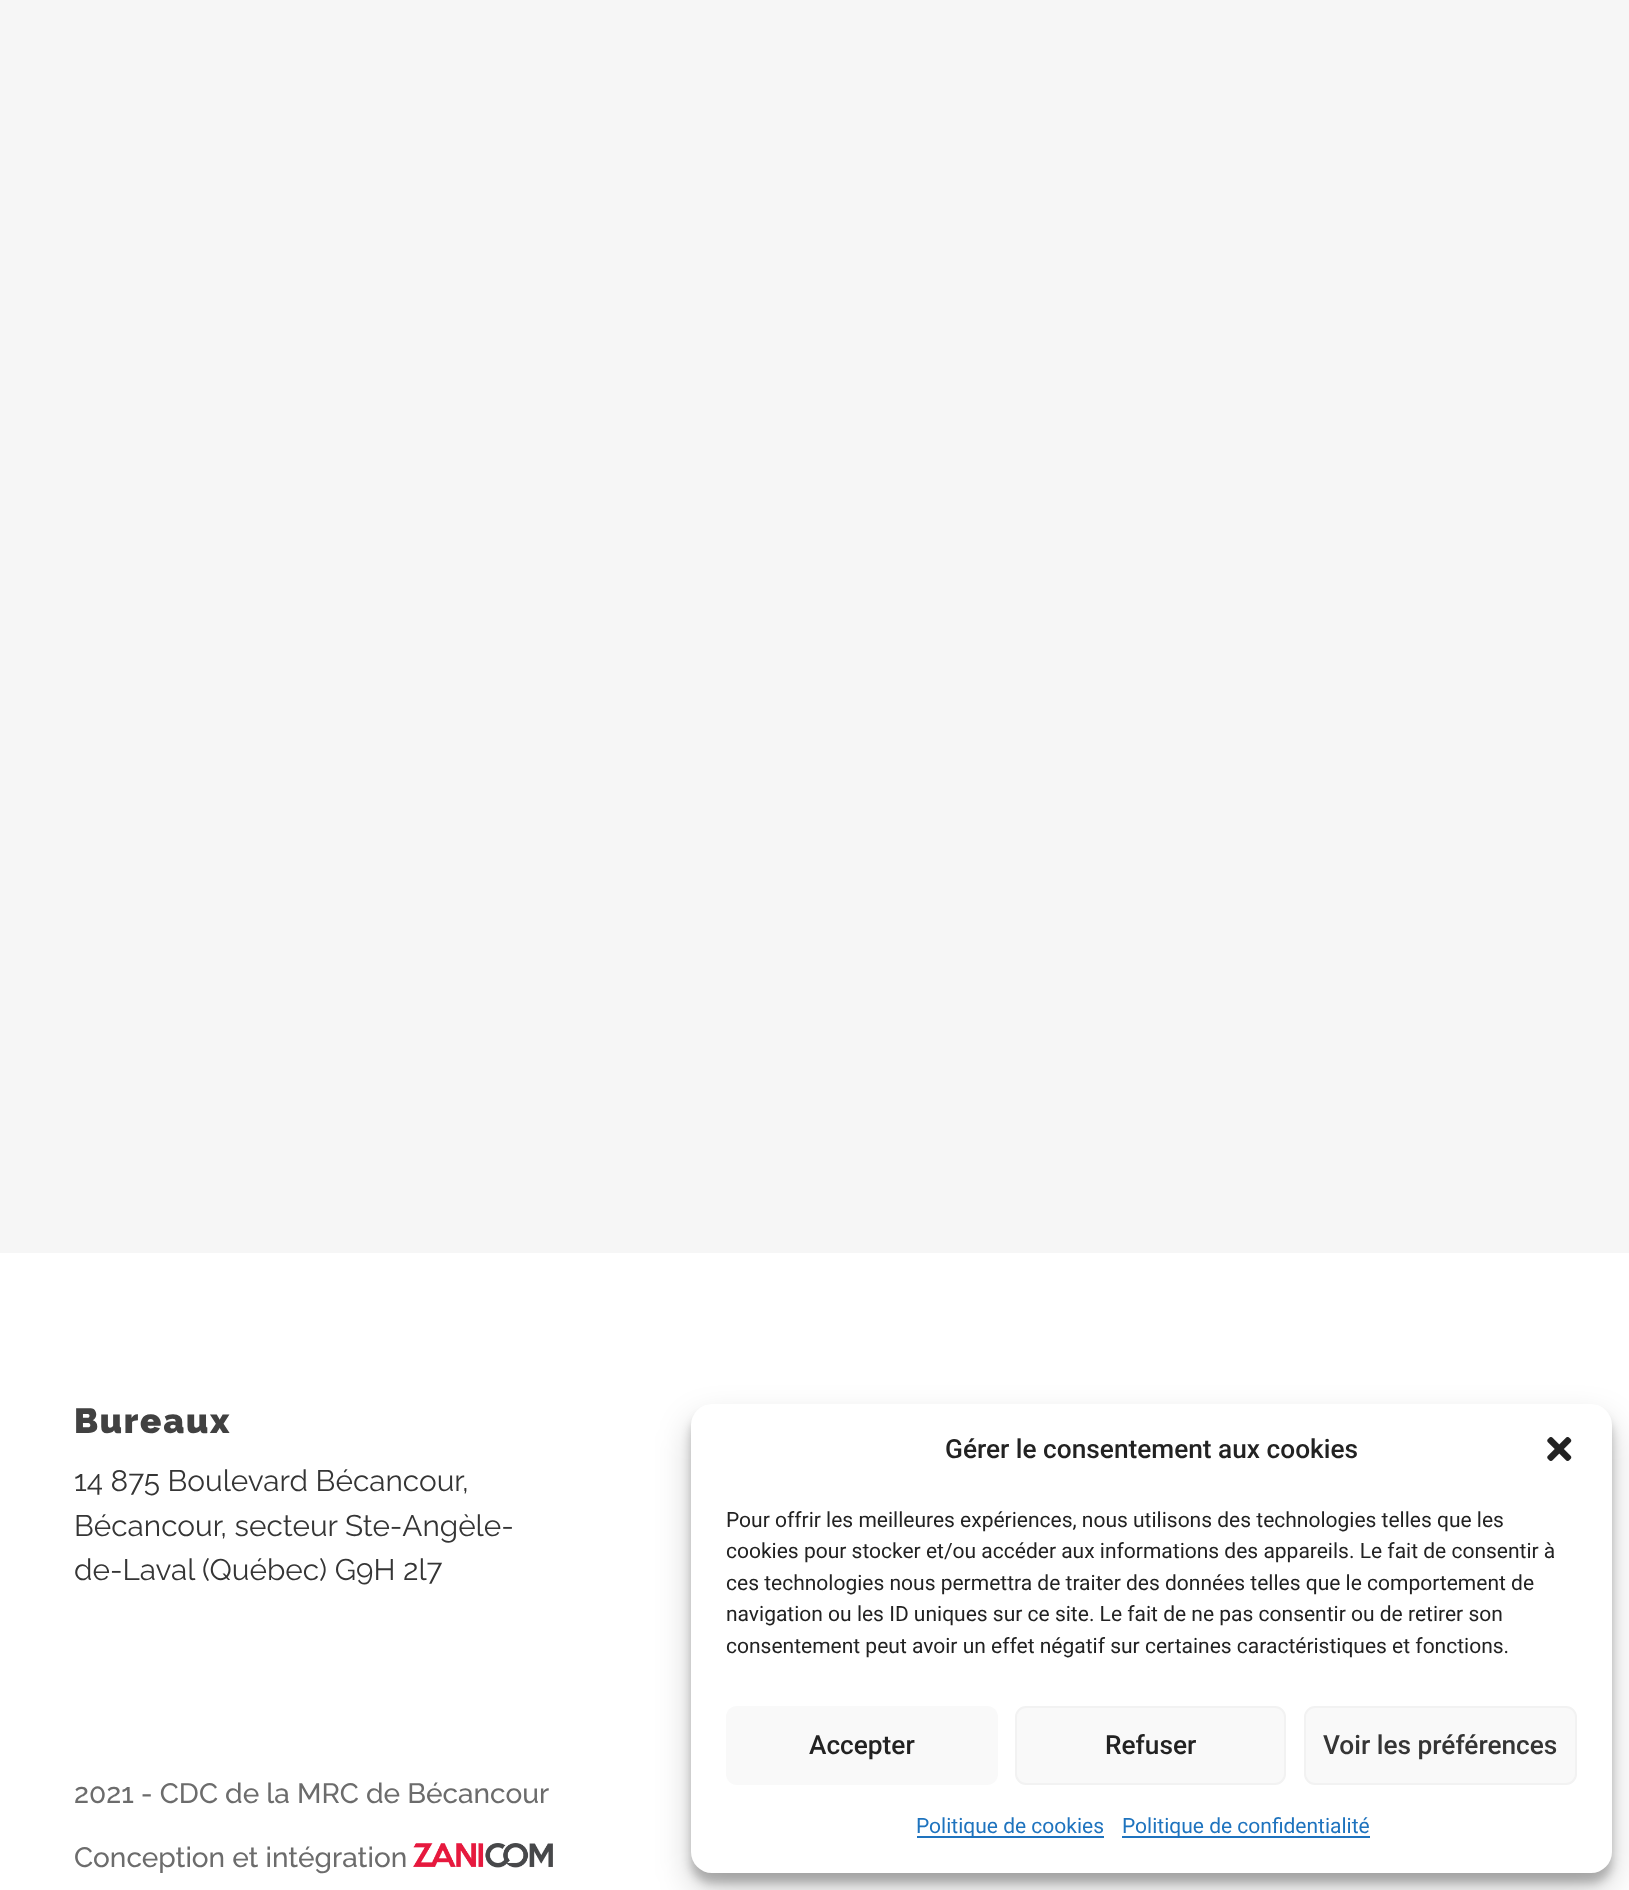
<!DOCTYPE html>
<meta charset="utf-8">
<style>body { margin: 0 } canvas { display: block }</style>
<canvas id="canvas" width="1629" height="1890"></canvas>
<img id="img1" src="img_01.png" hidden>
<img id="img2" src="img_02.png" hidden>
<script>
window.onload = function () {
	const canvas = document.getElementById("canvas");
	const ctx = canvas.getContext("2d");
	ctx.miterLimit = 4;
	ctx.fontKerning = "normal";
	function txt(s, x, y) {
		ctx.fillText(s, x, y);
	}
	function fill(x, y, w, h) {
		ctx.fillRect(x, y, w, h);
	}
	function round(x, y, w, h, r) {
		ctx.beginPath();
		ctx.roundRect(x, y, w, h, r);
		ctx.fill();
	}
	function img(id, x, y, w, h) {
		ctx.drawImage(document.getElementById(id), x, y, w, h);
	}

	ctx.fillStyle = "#FFFFFF";
	fill(0, 0, 1629, 1890);
	ctx.fillStyle = "#F6F6F6";
	fill(0, 0, 1629, 1253);
	img("img1", 413, 1843, 140, 25);
	ctx.fillStyle = "rgba(0, 0, 0, 0.23)";
	ctx.filter = "blur(5px)";
	ctx.beginPath();
	ctx.roundRect(691, 1414, 921, 469, 21);
	ctx.fill();
	ctx.filter = "none";
	ctx.fillStyle = "rgba(0, 0, 0, 0.19)";
	ctx.filter = "blur(17.5px)";
	ctx.beginPath();
	ctx.roundRect(691, 1421, 921, 469, 21);
	ctx.fill();
	ctx.filter = "none";
	ctx.fillStyle = "#FFFFFF";
	round(691, 1404, 921, 469, 21);
	img("img2", 1547, 1437, 25, 24);
	ctx.fillStyle = "#F9F9F9";
	round(726, 1706, 272, 79, 11);
	ctx.beginPath();
	ctx.roundRect(1016, 1707, 269, 77, 10);
	ctx.fill();
	ctx.strokeStyle = "#F2F2F2";
	ctx.lineWidth = 2;
	ctx.stroke();
	ctx.beginPath();
	ctx.roundRect(1305, 1707, 271, 77, 10);
	ctx.fill();
	ctx.stroke();
	ctx.fillStyle = "#1E73BE";
	fill(917, 1836, 187, 2);
	fill(1122, 1836, 248, 2);
	ctx.letterSpacing = "1.75px";
	ctx.font = "900 35px Raleway";
	ctx.fillStyle = "#414141";
	txt("Bureaux", 74, 1433);
	ctx.letterSpacing = "0px";
	ctx.font = "29.75px Raleway";
	ctx.fillStyle = "#353535";
	txt("14 875 Boulevard Bécancour,", 74, 1491);
	txt("Bécancour, secteur Ste-Angèle-", 74, 1536);
	txt("de-Laval (Québec) G9H 2l7", 74, 1580);
	ctx.font = "500 28px Raleway";
	ctx.fillStyle = "#6C6C6C";
	txt("2021 - CDC de la MRC de Bécancour", 74, 1803);
	txt("Conception et intégration", 74, 1867);
	ctx.font = "500 26.25px Roboto";
	ctx.fillStyle = "#222222";
	txt("Gérer le consentement aux cookies", 945, 1458);
	ctx.font = "21px Roboto";
	txt("Pour offrir les meilleures expériences, nous utilisons des technologies telles que les", 726, 1527);
	txt("cookies pour stocker et/ou accéder aux informations des appareils. Le fait de consentir à", 726, 1558);
	txt("ces technologies nous permettra de traiter des données telles que le comportement de", 726, 1590);
	txt("navigation ou les ID uniques sur ce site. Le fait de ne pas consentir ou de retirer son", 726, 1621);
	txt("consentement peut avoir un effet négatif sur certaines caractéristiques et fonctions.", 726, 1653);
	ctx.font = "500 26.25px Roboto";
	txt("Accepter", 809, 1754);
	txt("Refuser", 1105, 1754);
	ctx.fillStyle = "#353535";
	txt("Voir les préférences", 1323, 1754);
	ctx.font = "21px Roboto";
	ctx.fillStyle = "#1E73BE";
	txt("Politique de cookies", 916, 1833);
	txt("Politique de confidentialité", 1122, 1833);
};
</script>
